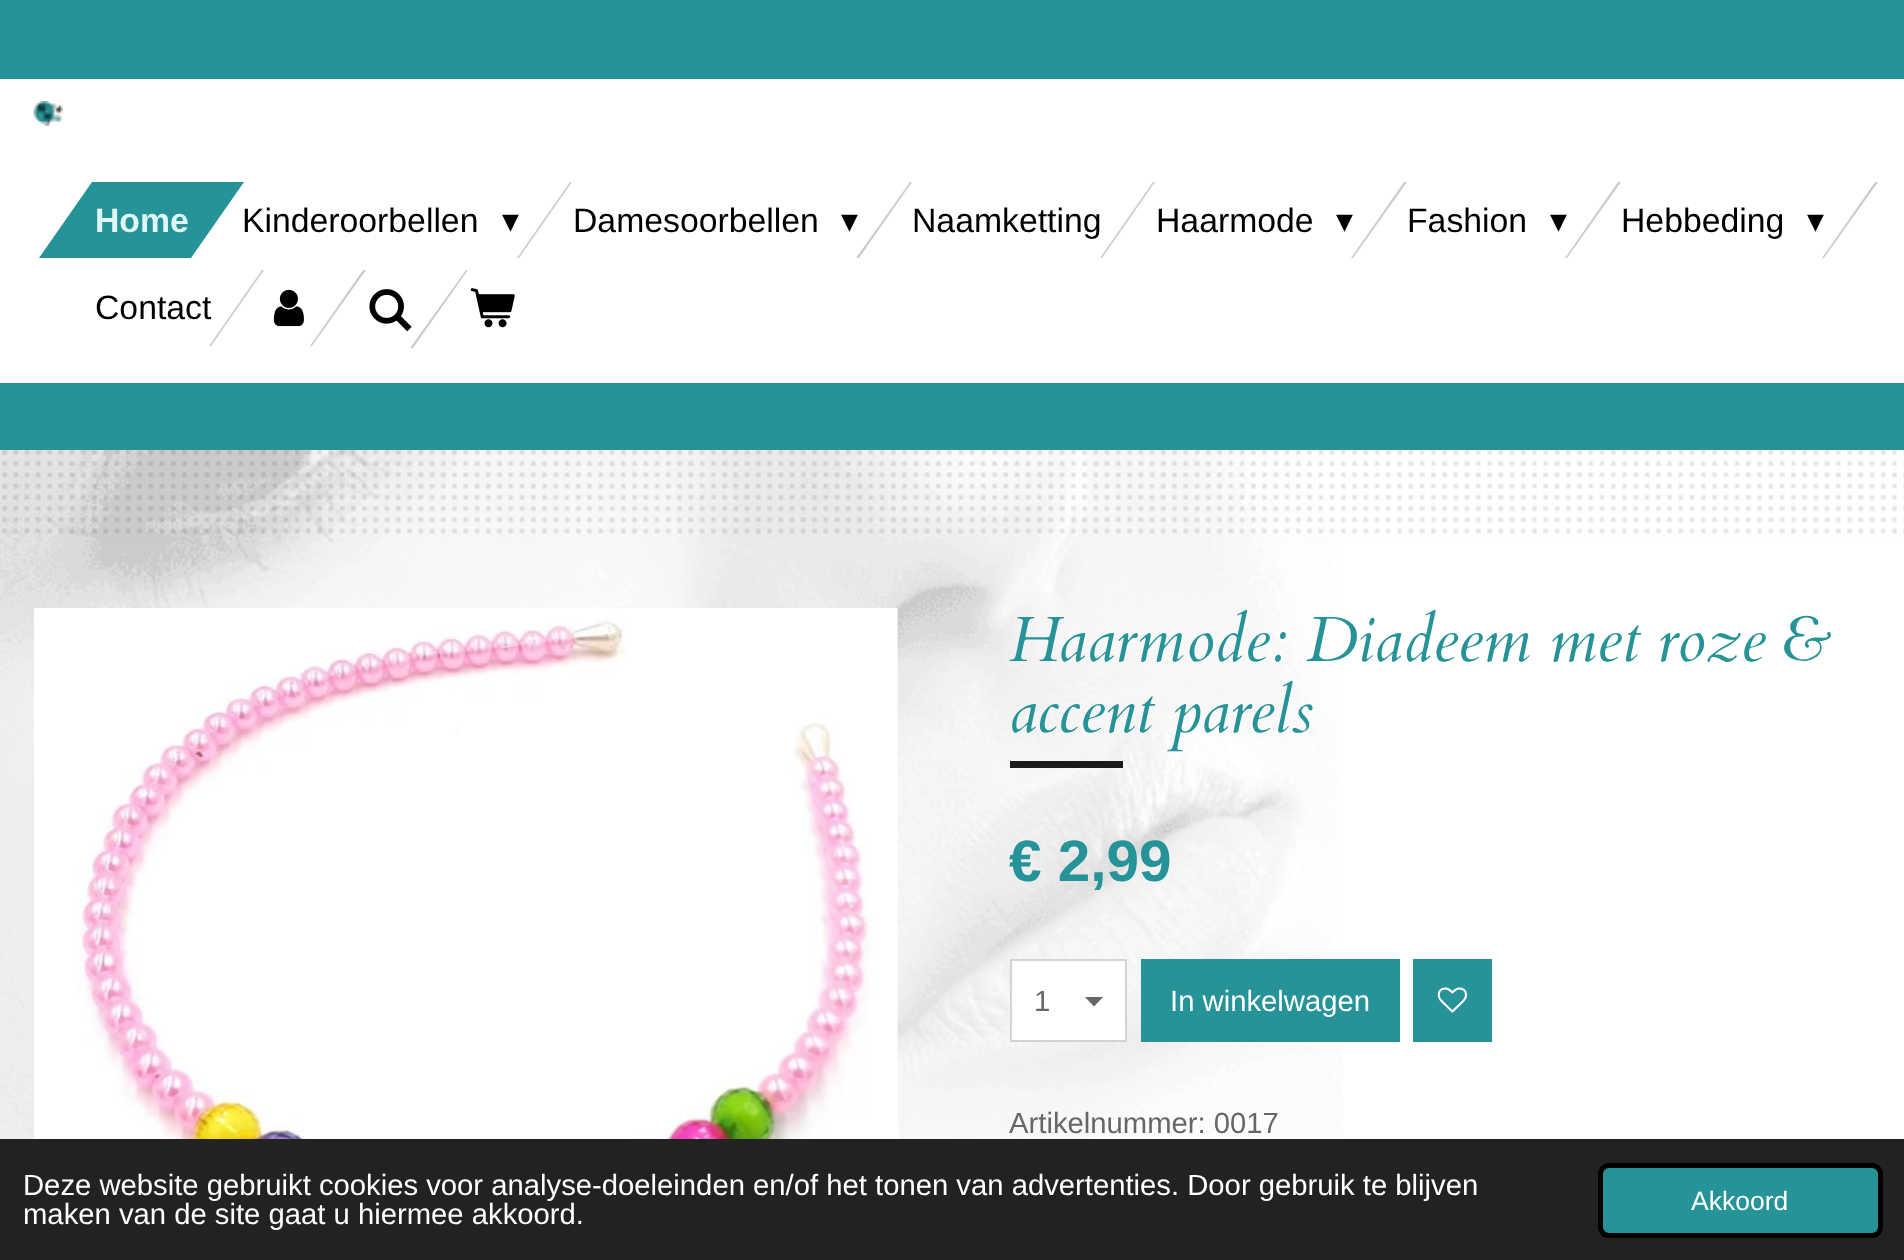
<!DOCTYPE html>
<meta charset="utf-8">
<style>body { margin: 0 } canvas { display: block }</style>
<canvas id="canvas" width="1904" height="1260"></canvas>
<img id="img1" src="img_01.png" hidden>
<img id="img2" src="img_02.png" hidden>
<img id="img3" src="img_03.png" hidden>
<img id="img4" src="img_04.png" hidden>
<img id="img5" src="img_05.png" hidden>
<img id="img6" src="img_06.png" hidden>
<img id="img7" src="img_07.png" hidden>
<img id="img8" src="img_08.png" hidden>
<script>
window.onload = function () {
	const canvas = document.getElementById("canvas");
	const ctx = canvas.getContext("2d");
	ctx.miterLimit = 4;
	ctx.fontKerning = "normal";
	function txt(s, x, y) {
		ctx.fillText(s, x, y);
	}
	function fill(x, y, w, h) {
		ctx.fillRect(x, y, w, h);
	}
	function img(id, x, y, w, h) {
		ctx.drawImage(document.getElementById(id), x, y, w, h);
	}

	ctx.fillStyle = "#FFFFFF";
	fill(0, 0, 1904, 1260);
	ctx.fillStyle = "#269398";
	fill(0, 0, 1904, 79);
	fill(1335, 383, 569, 67);
	ctx.beginPath();
	ctx.moveTo(1334, 450);
	ctx.lineTo(1334, 382);
	ctx.lineTo(1402, 450);
	ctx.closePath();
	ctx.fill();
	ctx.fillStyle = "#FFFFFF";
	fill(1334, 382, 1, 1);
	img("img1", 33, 101, 30, 25);
	ctx.fillStyle = "#269398";
	ctx.beginPath();
	ctx.moveTo(92, 182);
	ctx.lineTo(244, 182);
	ctx.lineTo(191, 258);
	ctx.lineTo(39, 258);
	ctx.closePath();
	ctx.fill();
	ctx.fillStyle = "#CCCCCC";
	ctx.beginPath();
	ctx.moveTo(570, 182);
	ctx.lineTo(572, 182);
	ctx.lineTo(519, 258);
	ctx.lineTo(517, 258);
	ctx.closePath();
	ctx.fill();
	ctx.beginPath();
	ctx.moveTo(910, 182);
	ctx.lineTo(912, 182);
	ctx.lineTo(859, 258);
	ctx.lineTo(856, 258);
	ctx.closePath();
	ctx.fill();
	ctx.beginPath();
	ctx.moveTo(1153, 182);
	ctx.lineTo(1155, 182);
	ctx.lineTo(1102, 258);
	ctx.lineTo(1100, 258);
	ctx.closePath();
	ctx.fill();
	ctx.beginPath();
	ctx.moveTo(1404, 182);
	ctx.lineTo(1407, 182);
	ctx.lineTo(1353, 258);
	ctx.lineTo(1351, 258);
	ctx.closePath();
	ctx.fill();
	ctx.beginPath();
	ctx.moveTo(1618, 182);
	ctx.lineTo(1621, 182);
	ctx.lineTo(1567, 258);
	ctx.lineTo(1565, 258);
	ctx.closePath();
	ctx.fill();
	ctx.beginPath();
	ctx.moveTo(1875, 182);
	ctx.lineTo(1878, 182);
	ctx.lineTo(1824, 258);
	ctx.lineTo(1822, 258);
	ctx.closePath();
	ctx.fill();
	ctx.beginPath();
	ctx.moveTo(262, 270);
	ctx.lineTo(264, 270);
	ctx.lineTo(211, 346);
	ctx.lineTo(209, 346);
	ctx.closePath();
	ctx.fill();
	img("img2", 273, 289, 31, 38);
	ctx.beginPath();
	ctx.moveTo(363, 270);
	ctx.lineTo(366, 270);
	ctx.lineTo(312, 346);
	ctx.lineTo(310, 346);
	ctx.closePath();
	ctx.fill();
	ctx.beginPath();
	ctx.moveTo(466, 270);
	ctx.lineTo(468, 270);
	ctx.lineTo(413, 348);
	ctx.lineTo(410, 348);
	ctx.closePath();
	ctx.fill();
	img("img3", 369, 289, 43, 43);
	img("img4", 470, 288, 45, 40);
	img("img5", 2, 450, 1902, 90);
	ctx.fillStyle = "#269398";
	fill(0, 383, 1334, 67);
	img("img6", 0, 450, 1343, 689);
	img("img7", 34, 608, 864, 531);
	ctx.fillStyle = "#1A1A1A";
	fill(1010, 761, 113, 7);
	ctx.fillStyle = "#FFFFFF";
	fill(1012, 961, 113, 79);
	ctx.fillStyle = "#666666";
	ctx.beginPath();
	ctx.moveTo(1094, 1006.5);
	ctx.lineTo(1085, 997);
	ctx.lineTo(1103, 997);
	ctx.closePath();
	ctx.fill();
	ctx.strokeStyle = "#D3D3D3";
	ctx.lineWidth = 2;
	ctx.strokeRect(1011, 960, 115, 81);
	ctx.fillStyle = "#269398";
	fill(1141, 959, 259, 83);
	fill(1413, 959, 79, 83);
	img("img8", 1437, 987, 30, 26);
	ctx.fillStyle = "#222222";
	fill(0, 1139, 1904, 121);
	ctx.fillStyle = "#269398";
	ctx.beginPath();
	ctx.roundRect(1600.5, 1165.5, 280, 70, 8.5);
	ctx.fill();
	ctx.strokeStyle = "#000000";
	ctx.lineWidth = 5;
	ctx.stroke();
	ctx.font = "bold 33.75px Liberation Sans";
	ctx.fillStyle = "#DFF6F7";
	txt("Home", 95, 232);
	ctx.font = "33.75px Liberation Sans";
	ctx.fillStyle = "#000000";
	txt("Kinderoorbellen", 242, 232);
	ctx.font = "33.75px DejaVu Sans";
	txt("▾", 502, 232);
	ctx.font = "33.75px Liberation Sans";
	txt("Damesoorbellen", 573, 232);
	ctx.font = "33.75px DejaVu Sans";
	txt("▾", 841, 232);
	ctx.font = "33.75px Liberation Sans";
	txt("Naamketting", 912, 232);
	txt("Haarmode", 1156, 232);
	ctx.font = "33.75px DejaVu Sans";
	txt("▾", 1336, 232);
	ctx.font = "33.75px Liberation Sans";
	txt("Fashion", 1407, 232);
	ctx.font = "33.75px DejaVu Sans";
	txt("▾", 1550, 232);
	ctx.font = "33.75px Liberation Sans";
	txt("Hebbeding", 1621, 232);
	ctx.font = "33.75px DejaVu Sans";
	txt("▾", 1807, 232);
	ctx.font = "33.75px Liberation Sans";
	txt("Contact", 95, 319);
	ctx.font = "italic 63.75px Cardo";
	ctx.fillStyle = "#269398";
	txt("Haarmode: Diadeem met roze &", 1009, 661);
	txt("accent parels", 1009, 732);
	ctx.font = "bold 58.5px Liberation Sans";
	txt("€ 2,99", 1009, 881);
	ctx.font = "29.25px Liberation Sans";
	ctx.fillStyle = "#666666";
	txt("1", 1034, 1011);
	ctx.fillStyle = "#FFFFFF";
	txt("In winkelwagen", 1170, 1011);
	ctx.fillStyle = "#666666";
	txt("Artikelnummer: 0017", 1009, 1133);
	ctx.fillStyle = "#FFFFFF";
	txt("Deze website gebruikt cookies voor analyse-doeleinden en/of het tonen van advertenties. Door gebruik te blijven", 23, 1195);
	txt("maken van de site gaat u hiermee akkoord.", 23, 1224);
	ctx.font = "26.5px Liberation Sans";
	txt("Akkoord", 1691, 1210);
};
</script>
